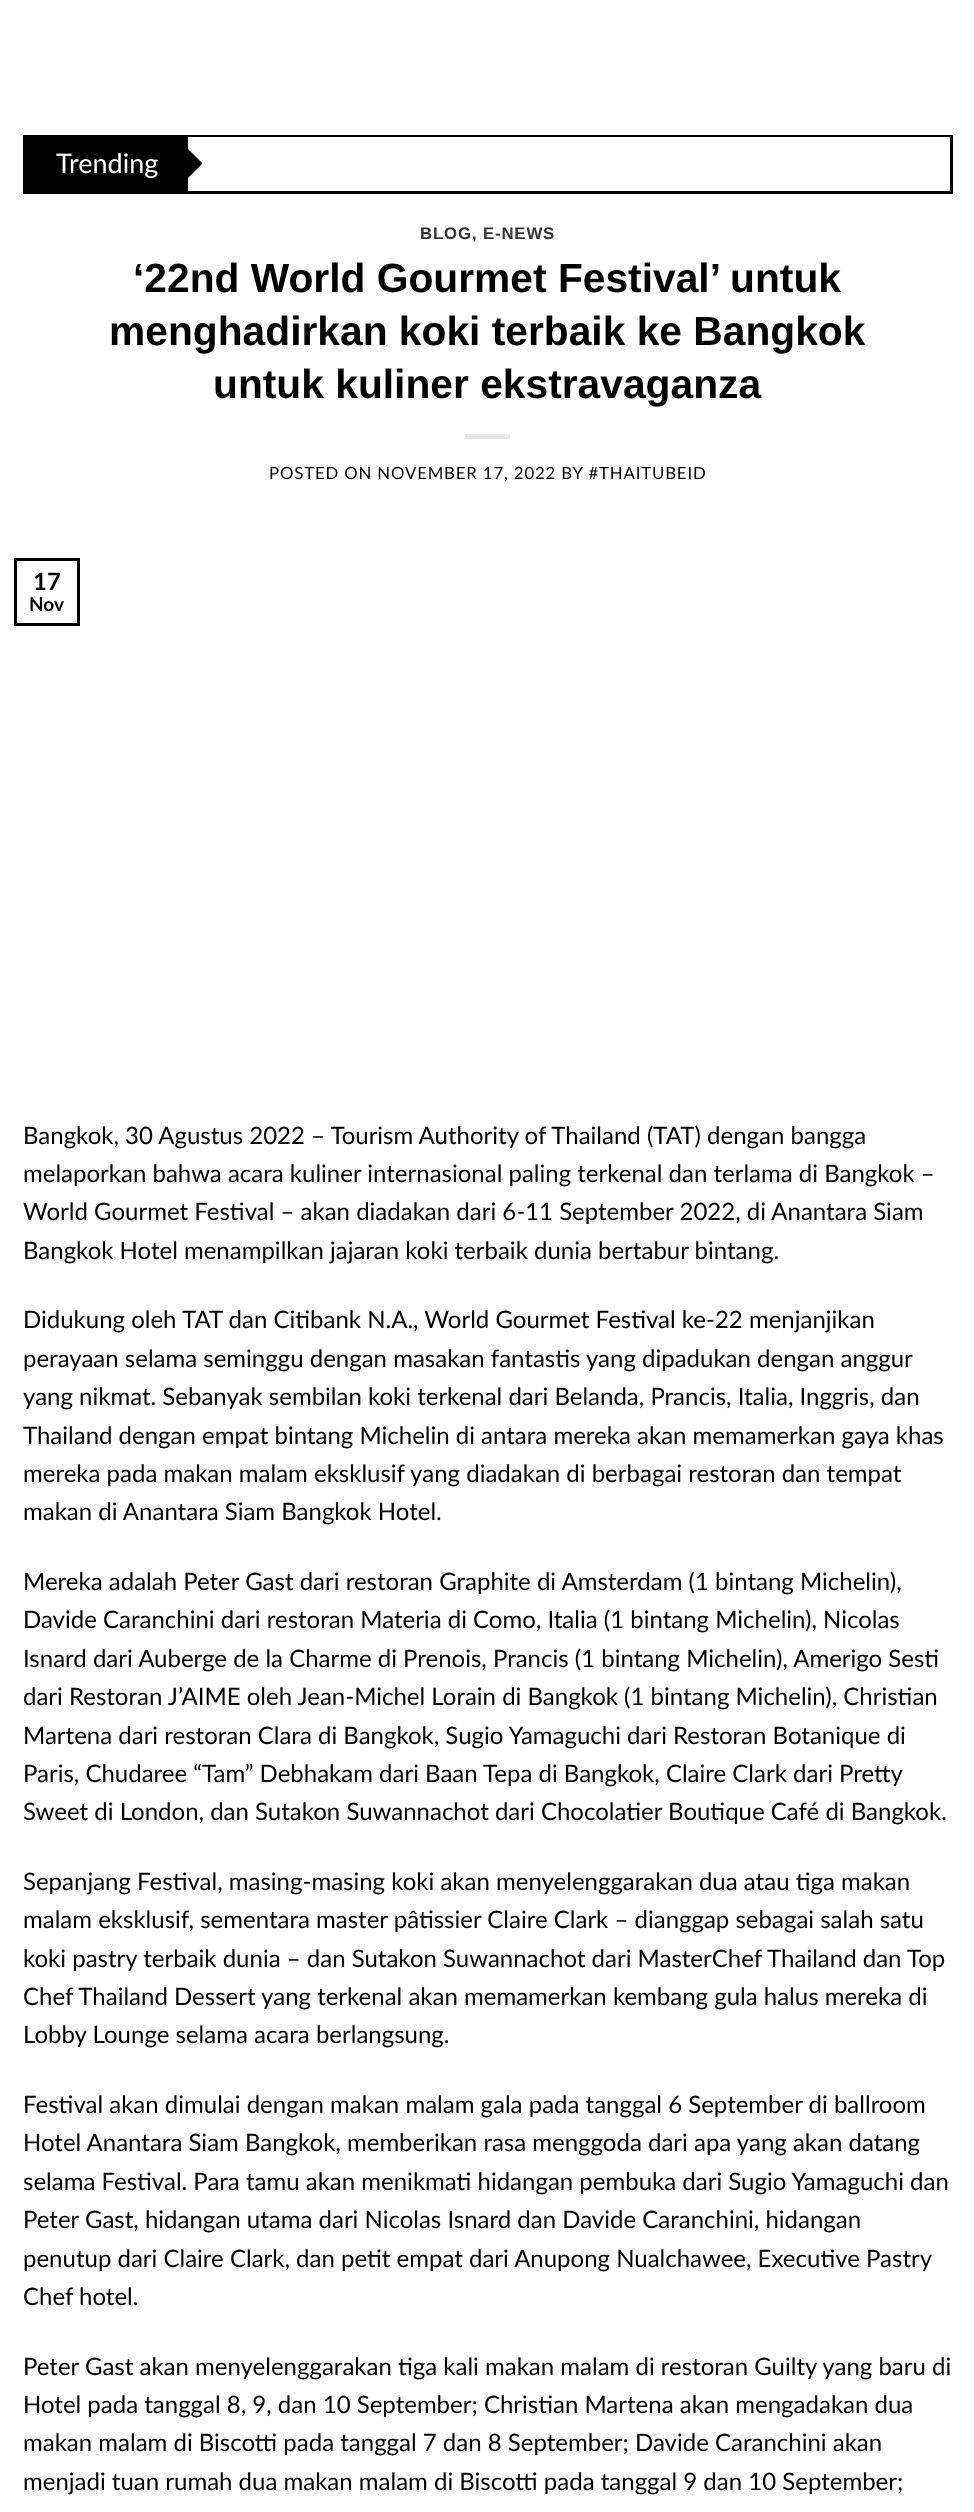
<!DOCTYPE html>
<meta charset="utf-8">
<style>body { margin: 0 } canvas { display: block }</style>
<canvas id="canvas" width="974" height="2512"></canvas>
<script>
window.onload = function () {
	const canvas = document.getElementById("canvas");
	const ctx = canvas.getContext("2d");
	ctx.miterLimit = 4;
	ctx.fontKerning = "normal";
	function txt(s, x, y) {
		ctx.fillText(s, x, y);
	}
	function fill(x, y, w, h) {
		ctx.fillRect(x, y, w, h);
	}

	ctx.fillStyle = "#FFFFFF";
	fill(0, 0, 974, 2512);
	ctx.strokeStyle = "#000000";
	ctx.lineWidth = 3;
	ctx.strokeRect(24.5, 135.5, 927, 57);
	fill(23, 134, 930, 1);
	ctx.fillStyle = "#000000";
	fill(26, 137, 162, 54);
	ctx.beginPath();
	ctx.moveTo(187.5, 178.5);
	ctx.lineTo(187.5, 148.5);
	ctx.lineTo(202.5, 163.5);
	ctx.closePath();
	ctx.fill();
	ctx.fillStyle = "#E6E6E6";
	fill(465, 434, 45, 5);
	ctx.strokeRect(15.5, 559.5, 63, 65);
	ctx.font = "27px Lato";
	ctx.fillStyle = "#FFFFFF";
	txt("Trending", 56, 173);
	ctx.letterSpacing = "0.85px";
	ctx.font = "bold 16.8px Liberation Sans";
	ctx.fillStyle = "#333333";
	txt("BLOG, E-NEWS", 420, 239);
	ctx.letterSpacing = "0px";
	ctx.font = "bold 40.75px Liberation Sans";
	ctx.fillStyle = "#000000";
	txt("‘22nd World Gourmet Festival’ untuk", 133, 292);
	txt("menghadirkan koki terbaik ke Bangkok", 109, 345);
	txt("untuk kuliner ekstravaganza", 213, 398);
	ctx.letterSpacing = "0.85px";
	ctx.font = "16.8px Lato";
	txt("POSTED ON NOVEMBER 17, 2022 BY #THAITUBEID", 269, 479);
	ctx.letterSpacing = "0px";
	ctx.font = "bold 24px Lato";
	txt("17", 33, 590);
	ctx.font = "bold 19px Lato";
	txt("Nov", 29, 611);
	ctx.font = "24px Lato";
	txt("Bangkok, 30 Agustus 2022 – Tourism Authority of Thailand (TAT) dengan bangga", 23, 1144);
	txt("melaporkan bahwa acara kuliner internasional paling terkenal dan terlama di Bangkok –", 23, 1182);
	txt("World Gourmet Festival – akan diadakan dari 6-11 September 2022, di Anantara Siam", 23, 1220);
	txt("Bangkok Hotel menampilkan jajaran koki terbaik dunia bertabur bintang.", 23, 1259);
	txt("Didukung oleh TAT dan Citibank N.A., World Gourmet Festival ke-22 menjanjikan", 23, 1328);
	txt("perayaan selama seminggu dengan masakan fantastis yang dipadukan dengan anggur", 23, 1367);
	txt("yang nikmat. Sebanyak sembilan koki terkenal dari Belanda, Prancis, Italia, Inggris, dan", 23, 1405);
	txt("Thailand dengan empat bintang Michelin di antara mereka akan memamerkan gaya khas", 23, 1444);
	txt("mereka pada makan malam eksklusif yang diadakan di berbagai restoran dan tempat", 23, 1482);
	txt("makan di Anantara Siam Bangkok Hotel.", 23, 1520);
	txt("Mereka adalah Peter Gast dari restoran Graphite di Amsterdam (1 bintang Michelin),", 23, 1590);
	txt("Davide Caranchini dari restoran Materia di Como, Italia (1 bintang Michelin), Nicolas", 23, 1628);
	txt("Isnard dari Auberge de la Charme di Prenois, Prancis (1 bintang Michelin), Amerigo Sesti", 23, 1667);
	txt("dari Restoran J’AIME oleh Jean-Michel Lorain di Bangkok (1 bintang Michelin), Christian", 23, 1705);
	txt("Martena dari restoran Clara di Bangkok, Sugio Yamaguchi dari Restoran Botanique di", 23, 1744);
	txt("Paris, Chudaree “Tam” Debhakam dari Baan Tepa di Bangkok, Claire Clark dari Pretty", 23, 1782);
	txt("Sweet di London, dan Sutakon Suwannachot dari Chocolatier Boutique Café di Bangkok.", 23, 1820);
	txt("Sepanjang Festival, masing-masing koki akan menyelenggarakan dua atau tiga makan", 23, 1890);
	txt("malam eksklusif, sementara master pâtissier Claire Clark – dianggap sebagai salah satu", 23, 1928);
	txt("koki pastry terbaik dunia – dan Sutakon Suwannachot dari MasterChef Thailand dan Top", 23, 1967);
	txt("Chef Thailand Dessert yang terkenal akan memamerkan kembang gula halus mereka di", 23, 2005);
	txt("Lobby Lounge selama acara berlangsung.", 23, 2043);
	txt("Festival akan dimulai dengan makan malam gala pada tanggal 6 September di ballroom", 23, 2113);
	txt("Hotel Anantara Siam Bangkok, memberikan rasa menggoda dari apa yang akan datang", 23, 2151);
	txt("selama Festival. Para tamu akan menikmati hidangan pembuka dari Sugio Yamaguchi dan", 23, 2190);
	txt("Peter Gast, hidangan utama dari Nicolas Isnard dan Davide Caranchini, hidangan", 23, 2228);
	txt("penutup dari Claire Clark, dan petit empat dari Anupong Nualchawee, Executive Pastry", 23, 2267);
	txt("Chef hotel.", 23, 2305);
	txt("Peter Gast akan menyelenggarakan tiga kali makan malam di restoran Guilty yang baru di", 23, 2375);
	txt("Hotel pada tanggal 8, 9, dan 10 September; Christian Martena akan mengadakan dua", 23, 2413);
	txt("makan malam di Biscotti pada tanggal 7 dan 8 September; Davide Caranchini akan", 23, 2451);
	txt("menjadi tuan rumah dua makan malam di Biscotti pada tanggal 9 dan 10 September;", 23, 2490);
};
</script>
